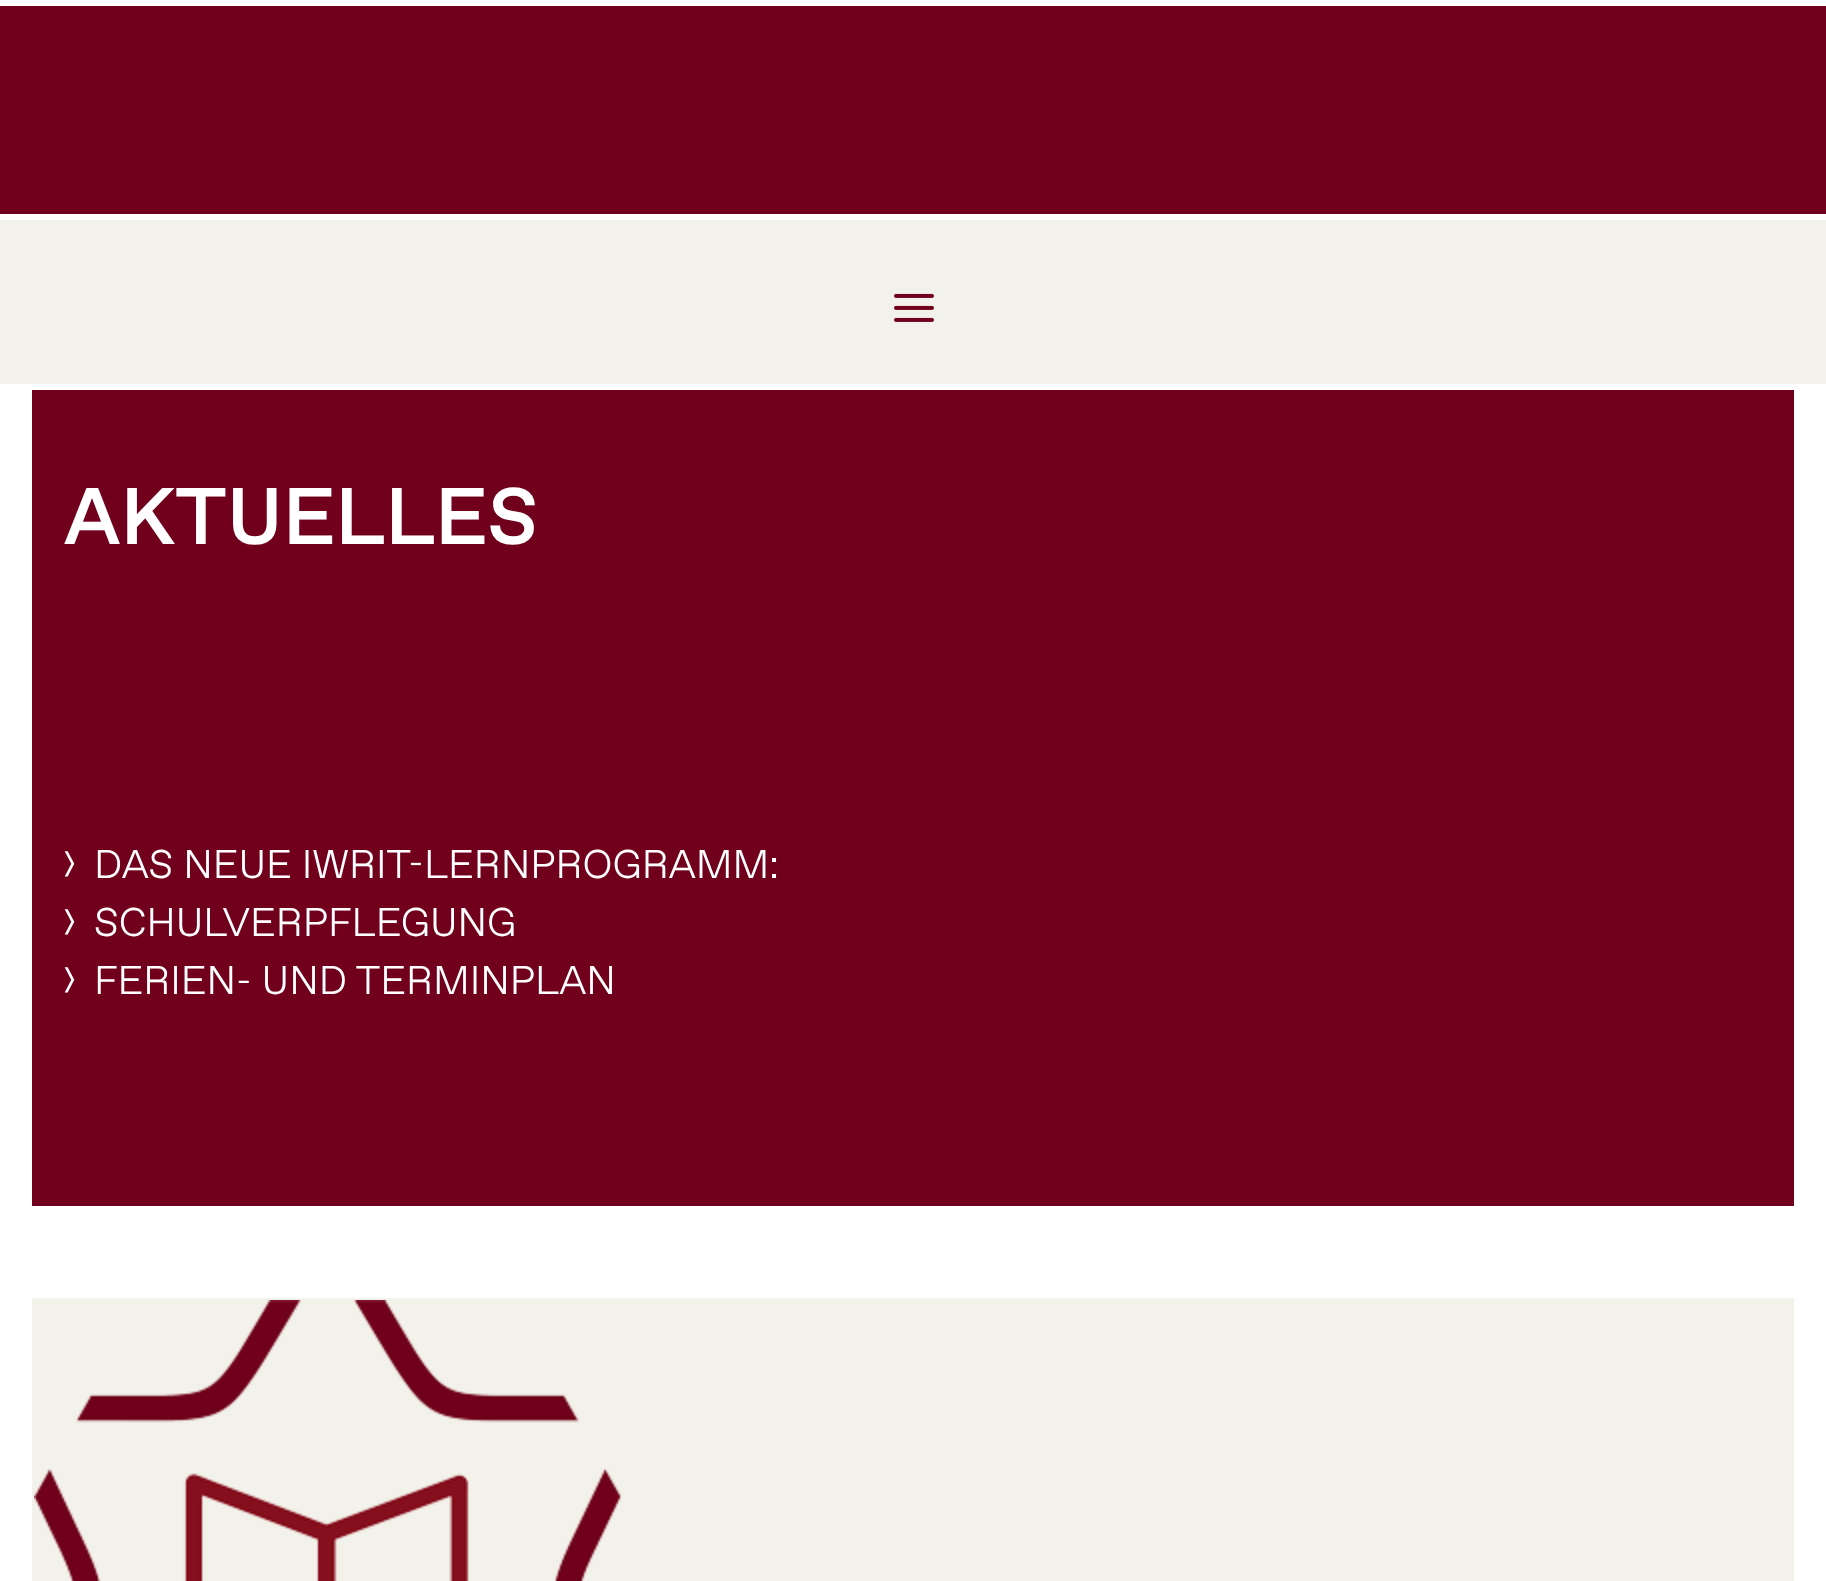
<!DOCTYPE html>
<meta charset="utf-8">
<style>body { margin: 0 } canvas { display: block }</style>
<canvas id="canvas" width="1826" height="1581"></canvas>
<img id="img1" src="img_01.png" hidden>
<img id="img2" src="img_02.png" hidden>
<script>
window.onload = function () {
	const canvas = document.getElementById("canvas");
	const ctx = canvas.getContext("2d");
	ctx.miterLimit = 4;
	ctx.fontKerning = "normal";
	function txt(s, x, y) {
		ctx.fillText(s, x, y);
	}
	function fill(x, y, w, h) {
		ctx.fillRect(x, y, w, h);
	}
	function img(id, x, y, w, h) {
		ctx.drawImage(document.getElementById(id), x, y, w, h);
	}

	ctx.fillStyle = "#FFFFFF";
	fill(0, 0, 1826, 1581);
	ctx.fillStyle = "#71001C";
	fill(0, 6, 1826, 208);
	ctx.fillStyle = "#F3F2EA";
	fill(0, 220, 1826, 164);
	img("img1", 894, 293, 40, 29);
	ctx.fillStyle = "#71001C";
	fill(32, 390, 1762, 816);
	ctx.fillStyle = "#F3F2EA";
	fill(32, 1298, 1762, 283);
	img("img2", 34, 1300, 588, 281);
	ctx.font = "500 80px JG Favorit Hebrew";
	ctx.fillStyle = "#FFFFFF";
	txt("AKTUELLES", 64, 544);
	ctx.font = "bold 28px JG Favorit Hebrew";
	txt("〉", 64, 874);
	ctx.font = "300 40px JG Favorit Hebrew";
	txt("DAS NEUE IWRIT-LERNPROGRAMM:", 94, 878);
	ctx.font = "bold 28px JG Favorit Hebrew";
	txt("〉", 64, 932);
	ctx.font = "300 40px JG Favorit Hebrew";
	txt("SCHULVERPFLEGUNG", 94, 936);
	ctx.font = "bold 28px JG Favorit Hebrew";
	txt("〉", 64, 990);
	ctx.font = "300 40px JG Favorit Hebrew";
	txt("FERIEN- UND TERMINPLAN", 94, 994);
};
</script>
